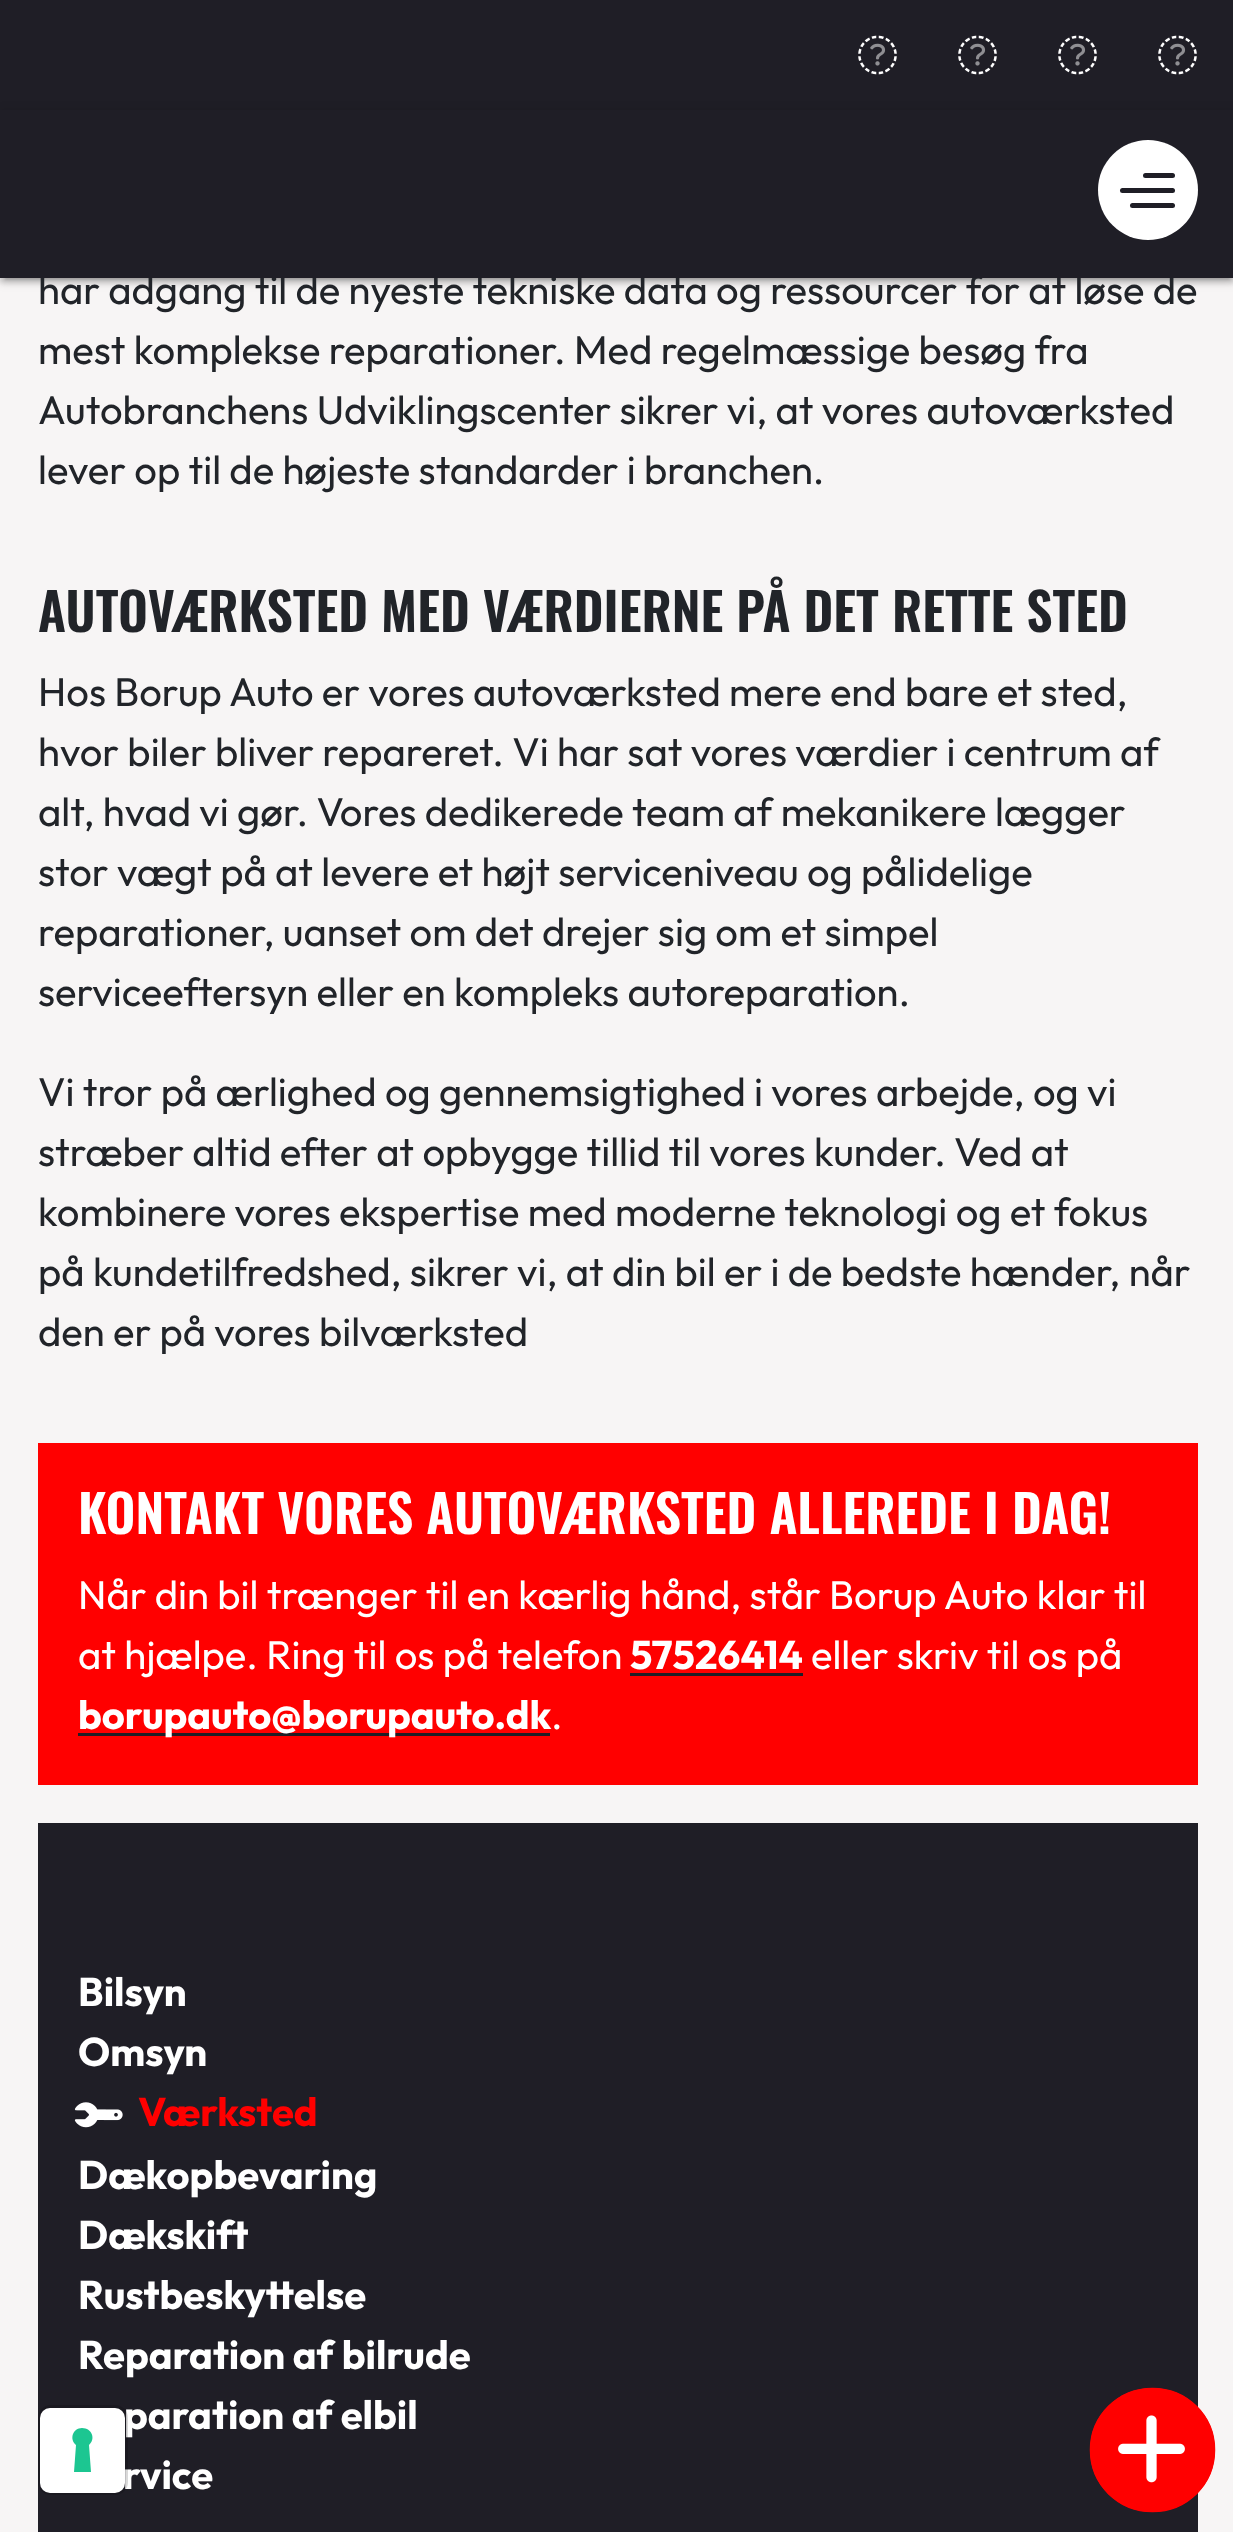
<!DOCTYPE html>
<meta charset="utf-8">
<style>body { margin: 0 } canvas { display: block }</style>
<canvas id="canvas" width="1233" height="2532"></canvas>
<img id="img1" src="img_01.png" hidden>
<img id="img2" src="img_02.png" hidden>
<img id="img3" src="img_03.png" hidden>
<script>
window.onload = function () {
	const canvas = document.getElementById("canvas");
	const ctx = canvas.getContext("2d");
	ctx.miterLimit = 4;
	ctx.fontKerning = "normal";
	function txt(s, x, y) {
		ctx.fillText(s, x, y);
	}
	function fill(x, y, w, h) {
		ctx.fillRect(x, y, w, h);
	}
	function round(x, y, w, h, r) {
		ctx.beginPath();
		ctx.roundRect(x, y, w, h, r);
		ctx.fill();
	}
	function img(id, x, y, w, h) {
		ctx.drawImage(document.getElementById(id), x, y, w, h);
	}

	ctx.fillStyle = "#F7F5F5";
	fill(0, 0, 1233, 2532);
	ctx.fillStyle = "#1F1E26";
	fill(0, 0, 1233, 110);
	img("img1", 858, 35, 39, 40);
	img("img1", 958, 35, 39, 40);
	img("img1", 1058, 35, 39, 40);
	img("img1", 1158, 35, 39, 40);
	ctx.fillStyle = "rgba(0, 0, 0, 0.2)";
	ctx.filter = "blur(6px)";
	ctx.beginPath();
	ctx.rect(0, 113, 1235, 167);
	ctx.fill();
	ctx.filter = "none";
	ctx.fillStyle = "rgba(0, 0, 0, 0.12)";
	ctx.filter = "blur(1px)";
	ctx.beginPath();
	ctx.rect(5, 123, 1225, 157);
	ctx.fill();
	ctx.filter = "none";
	ctx.fillStyle = "rgba(0, 0, 0, 0.14)";
	ctx.filter = "blur(2.5px)";
	ctx.beginPath();
	ctx.rect(0, 115, 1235, 168);
	ctx.fill();
	ctx.filter = "none";
	ctx.fillStyle = "#FF0000";
	fill(38, 1443, 1160, 342);
	ctx.fillStyle = "#1F1E26";
	fill(630, 1673, 173, 3);
	fill(78, 1733, 472, 3);
	fill(38, 1823, 1160, 709);
	img("img2", 74, 2102, 49, 26);
	ctx.fillStyle = "#FF0000";
	ctx.beginPath();
	ctx.moveTo(1152, 2512);
	ctx.bezierCurveTo(1118, 2512, 1090, 2485, 1090, 2450);
	ctx.bezierCurveTo(1090, 2415, 1118, 2388, 1152, 2388);
	ctx.bezierCurveTo(1187, 2388, 1215, 2415, 1215, 2450);
	ctx.bezierCurveTo(1215, 2485, 1187, 2512, 1152, 2512);
	ctx.closePath();
	ctx.fill();
	img("img3", 1118, 2415, 67, 68);
	ctx.beginPath();
	ctx.moveTo(1152.5, 2511);
	ctx.bezierCurveTo(1118.5, 2511, 1091, 2484, 1091, 2450);
	ctx.bezierCurveTo(1091, 2416, 1118.5, 2389, 1152.5, 2389);
	ctx.bezierCurveTo(1186.5, 2389, 1214, 2416, 1214, 2450);
	ctx.bezierCurveTo(1214, 2484, 1186.5, 2511, 1152.5, 2511);
	ctx.closePath();
	ctx.strokeStyle = "#FF0000";
	ctx.lineWidth = 2.5;
	ctx.stroke();
	ctx.font = "40px Outfit";
	ctx.fillStyle = "#212429";
	txt("har adgang til de nyeste tekniske data og ressourcer for at løse de", 38, 304);
	ctx.fillStyle = "#1F1E26";
	fill(0, 110, 1233, 168);
	ctx.fillStyle = "#FFFFFF";
	ctx.beginPath();
	ctx.arc(1148, 190, 50, 0, Math.PI * 2);
	ctx.fill();
	ctx.fillStyle = "#1F1E26";
	round(1130, 203, 45, 5, 2.5);
	round(1143, 173, 32, 5, 2.5);
	round(1120, 188, 55, 5, 2.5);
	ctx.fillStyle = "#212429";
	txt("mest komplekse reparationer. Med regelmæssige besøg fra", 38, 364);
	txt("Autobranchens Udviklingscenter sikrer vi, at vores autoværksted", 38, 424);
	txt("lever op til de højeste standarder i branchen.", 38, 484);
	ctx.font = "600 52px Oswald";
	txt("AUTOVÆRKSTED MED VÆRDIERNE PÅ DET RETTE STED", 38, 632);
	ctx.font = "40px Outfit";
	txt("Hos Borup Auto er vores autoværksted mere end bare et sted,", 38, 706);
	txt("hvor biler bliver repareret. Vi har sat vores værdier i centrum af", 38, 766);
	txt("alt, hvad vi gør. Vores dedikerede team af mekanikere lægger", 38, 826);
	txt("stor vægt på at levere et højt serviceniveau og pålidelige", 38, 886);
	txt("reparationer, uanset om det drejer sig om et simpel", 38, 946);
	txt("serviceeftersyn eller en kompleks autoreparation.", 38, 1006);
	txt("Vi tror på ærlighed og gennemsigtighed i vores arbejde, og vi", 38, 1106);
	txt("stræber altid efter at opbygge tillid til vores kunder. Ved at", 38, 1166);
	txt("kombinere vores ekspertise med moderne teknologi og et fokus", 38, 1226);
	txt("på kundetilfredshed, sikrer vi, at din bil er i de bedste hænder, når", 38, 1286);
	txt("den er på vores bilværksted", 38, 1346);
	ctx.font = "600 52px Oswald";
	ctx.fillStyle = "#FFFFFF";
	txt("KONTAKT VORES AUTOVÆRKSTED ALLEREDE I DAG!", 78, 1534);
	ctx.font = "40px Outfit";
	txt("Når din bil trænger til en kærlig hånd, står Borup Auto klar til", 78, 1609);
	txt("at hjælpe. Ring til os på telefon", 78, 1669);
	ctx.font = "bold 40px Outfit";
	txt("57526414", 630, 1669);
	ctx.font = "40px Outfit";
	txt("eller skriv til os på", 811, 1669);
	ctx.font = "bold 40px Outfit";
	txt("borupauto@borupauto.dk", 78, 1729);
	ctx.font = "40px Outfit";
	txt(".", 551, 1729);
	ctx.font = "bold 40px Outfit";
	txt("Bilsyn", 78, 2006);
	txt("Omsyn", 78, 2066);
	ctx.fillStyle = "#FF0000";
	txt("Værksted", 138, 2126);
	ctx.fillStyle = "#FFFFFF";
	txt("Dækopbevaring", 78, 2189);
	txt("Dækskift", 78, 2249);
	txt("Rustbeskyttelse", 78, 2309);
	txt("Reparation af bilrude", 78, 2369);
	txt("paration af elbil", 124, 2429);
	txt("rvice", 123, 2489);
	ctx.beginPath();
	ctx.roundRect(39.5, 2406.5, 87, 87, 11.5);
	ctx.strokeStyle = "rgba(0, 0, 0, 0.15)";
	ctx.lineWidth = 3;
	ctx.stroke();
	round(40, 2408, 85, 85, 10);
	ctx.fillStyle = "#1CC691";
	ctx.beginPath();
	ctx.moveTo(82, 2428);
	ctx.bezierCurveTo(92, 2428, 96, 2439, 89, 2445);
	ctx.lineTo(91, 2472);
	ctx.lineTo(74, 2472);
	ctx.lineTo(76, 2445);
	ctx.bezierCurveTo(69, 2439, 73, 2428, 82, 2428);
	ctx.closePath();
	ctx.fill("evenodd");
};
</script>
